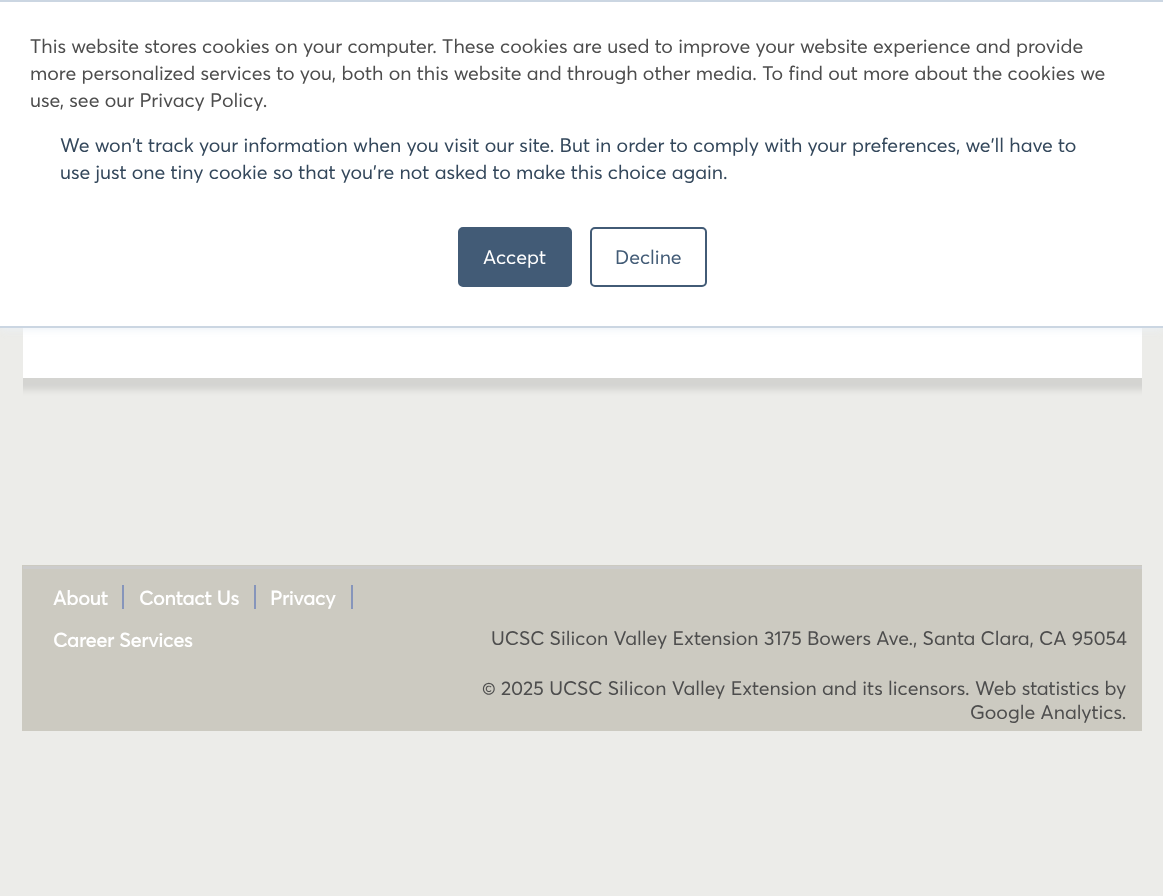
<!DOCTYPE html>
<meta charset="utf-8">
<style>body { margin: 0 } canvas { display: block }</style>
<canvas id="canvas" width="1163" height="896"></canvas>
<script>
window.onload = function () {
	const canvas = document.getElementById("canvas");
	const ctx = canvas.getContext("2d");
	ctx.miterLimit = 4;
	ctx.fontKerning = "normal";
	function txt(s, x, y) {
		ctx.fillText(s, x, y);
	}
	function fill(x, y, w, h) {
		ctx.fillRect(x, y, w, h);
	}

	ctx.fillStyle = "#ECECE9";
	fill(0, 0, 1163, 896);
	ctx.save();
	ctx.beginPath();
	ctx.rect(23, 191, 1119, 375);
	ctx.clip();
	ctx.fillStyle = "rgba(0, 0, 0, 0.1)";
	ctx.filter = "blur(3px)";
	ctx.beginPath();
	ctx.rect(0, 191, 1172, 199);
	ctx.fill();
	ctx.filter = "none";
	ctx.restore();
	ctx.fillStyle = "#FFFFFF";
	fill(23, 328, 1119, 50);
	ctx.fillStyle = "#EAF0F6";
	ctx.filter = "blur(4px)";
	ctx.beginPath();
	ctx.rect(0, 2, 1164, 327);
	ctx.fill();
	ctx.filter = "none";
	ctx.fillStyle = "#FFFFFF";
	fill(0, 2, 1163, 324);
	ctx.fillStyle = "#CBD6E2";
	fill(0, 0, 1163, 2);
	fill(0, 326, 1163, 2);
	ctx.fillStyle = "#425B76";
	ctx.beginPath();
	ctx.roundRect(459, 228, 112, 58, 4);
	ctx.fill();
	ctx.strokeStyle = "#425B76";
	ctx.lineWidth = 2;
	ctx.stroke();
	ctx.beginPath();
	ctx.roundRect(591, 228, 115, 58, 4);
	ctx.stroke();
	ctx.fillStyle = "#CCCAC1";
	fill(22, 565, 1120, 166);
	ctx.fillStyle = "#CCCCCC";
	fill(23, 566, 1119, 3);
	ctx.fillStyle = "#8695BB";
	fill(122, 585, 2, 24);
	fill(254, 585, 2, 24);
	fill(351, 585, 2, 24);
	ctx.font = "19.5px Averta";
	ctx.fillStyle = "#4D4D4D";
	txt("This website stores cookies on your computer. These cookies are used to improve your website experience and provide", 30, 53);
	txt("more personalized services to you, both on this website and through other media. To find out more about the cookies we", 30, 80);
	txt("use, see our Privacy Policy.", 30, 107);
	ctx.fillStyle = "#33475B";
	txt("We won't track your information when you visit our site. But in order to comply with your preferences, we'll have to", 60, 152);
	txt("use just one tiny cookie so that you're not asked to make this choice again.", 60, 179);
	ctx.fillStyle = "#FFFFFF";
	txt("Accept", 483, 264);
	ctx.fillStyle = "#425B76";
	txt("Decline", 615, 264);
	ctx.font = "bold 19.5px Averta";
	ctx.fillStyle = "#FFFFFF";
	txt("About", 53, 605);
	txt("Contact Us", 139, 605);
	txt("Privacy", 270, 605);
	txt("Career Services", 53, 647);
	ctx.font = "19.5px Averta";
	ctx.fillStyle = "#4D4D4D";
	txt("UCSC Silicon Valley Extension 3175 Bowers Ave., Santa Clara, CA 95054", 491, 645);
	txt("© 2025 UCSC Silicon Valley Extension and its licensors. Web statistics by", 482, 695);
	txt("Google Analytics.", 970, 719);
};
</script>
